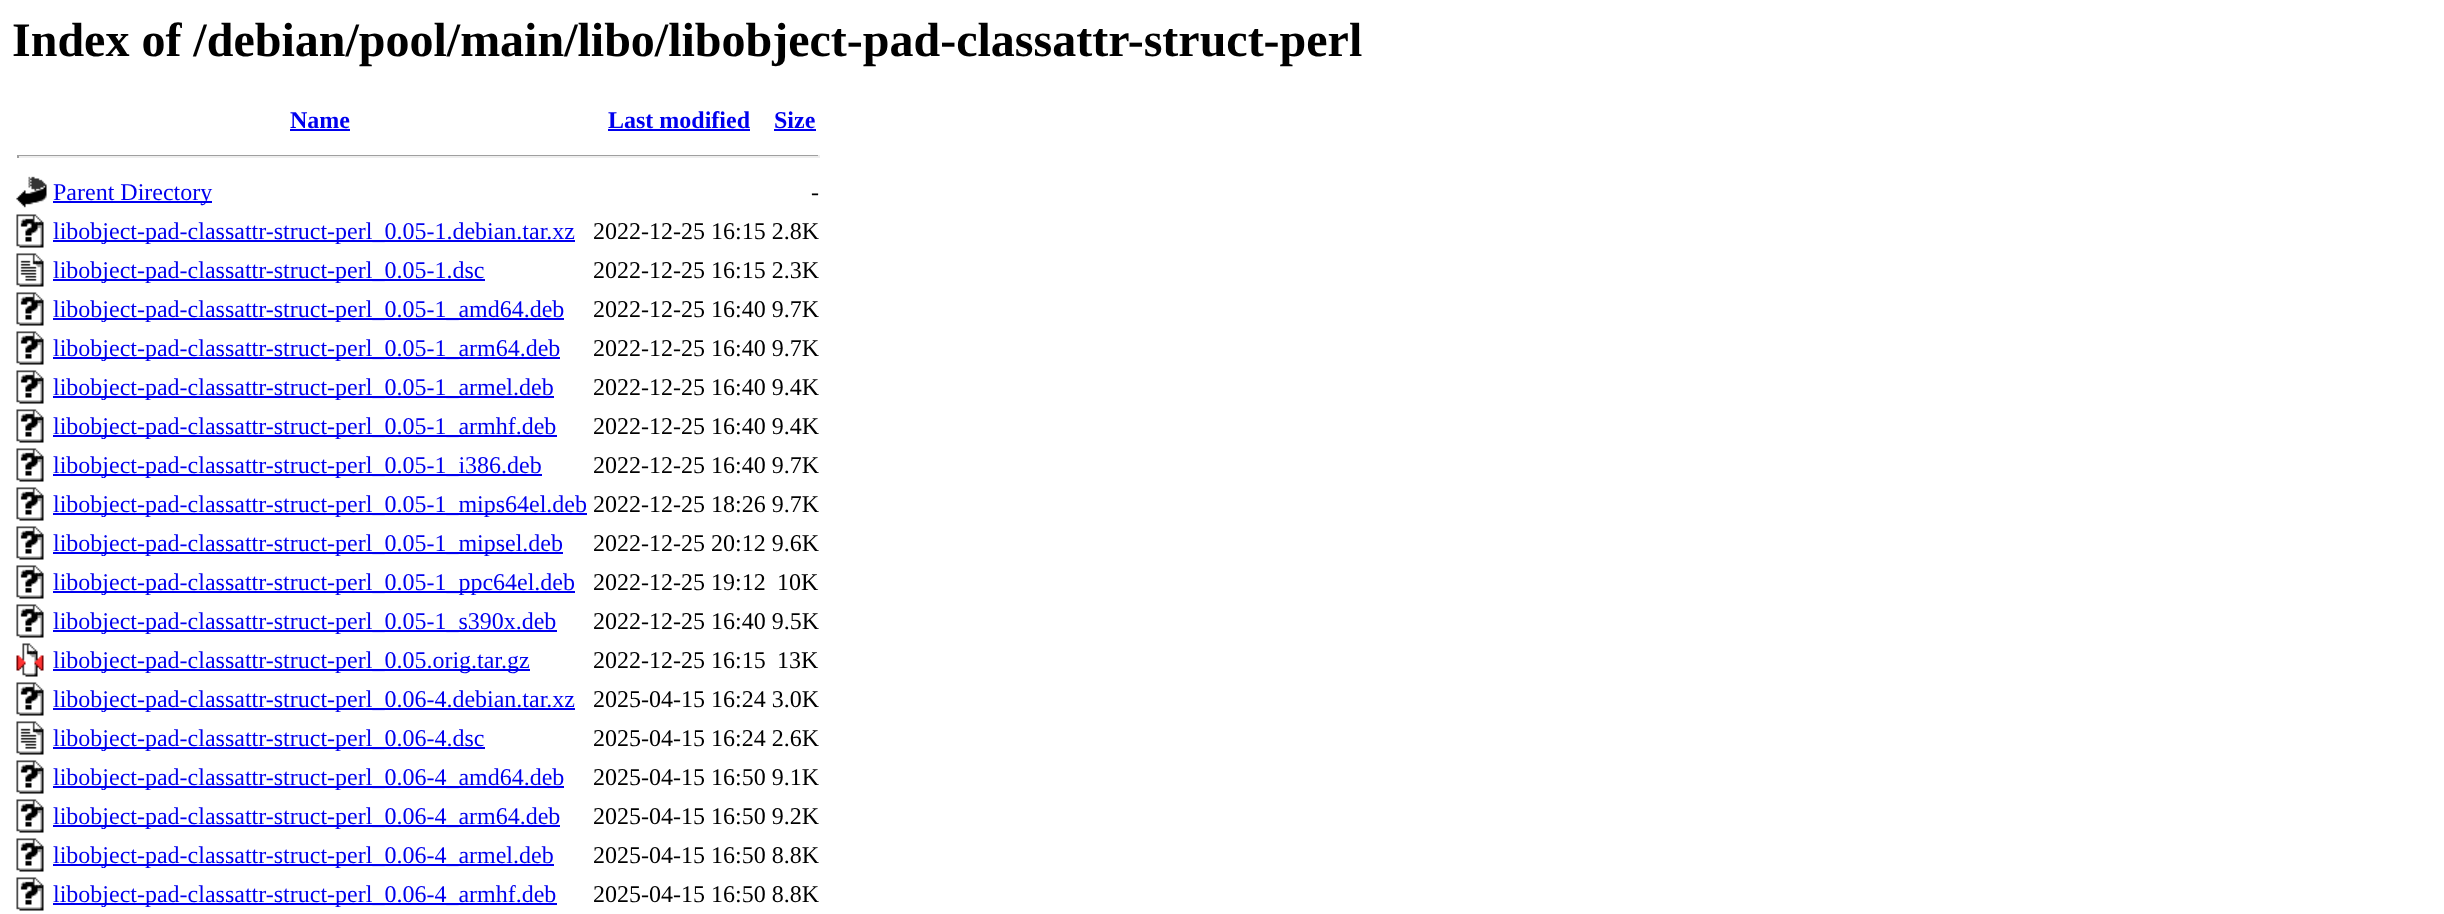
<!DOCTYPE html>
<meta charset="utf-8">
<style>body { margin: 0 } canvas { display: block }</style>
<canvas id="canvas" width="2444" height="914"></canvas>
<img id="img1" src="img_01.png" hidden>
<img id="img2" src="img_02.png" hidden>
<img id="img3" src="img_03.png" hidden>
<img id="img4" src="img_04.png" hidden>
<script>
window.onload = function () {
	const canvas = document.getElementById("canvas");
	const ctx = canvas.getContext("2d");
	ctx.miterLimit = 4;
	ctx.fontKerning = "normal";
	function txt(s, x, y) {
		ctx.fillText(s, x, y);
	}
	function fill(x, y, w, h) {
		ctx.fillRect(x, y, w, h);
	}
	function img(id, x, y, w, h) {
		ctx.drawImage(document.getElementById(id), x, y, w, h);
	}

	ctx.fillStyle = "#FFFFFF";
	fill(0, 0, 2444, 914);
	ctx.fillStyle = "#0000EE";
	fill(290, 129, 60, 2);
	fill(608, 129, 142, 2);
	fill(774, 129, 42, 2);
	ctx.fillStyle = "#9F9F9F";
	fill(17, 155, 802, 1);
	ctx.fillStyle = "#EEEEEE";
	fill(818, 155, 2, 3);
	fill(17, 156, 802, 2);
	ctx.fillStyle = "#9F9F9F";
	fill(17, 155, 2, 3);
	img("img1", 16, 176, 31, 32);
	ctx.fillStyle = "#0000EE";
	fill(53, 201, 159, 2);
	img("img2", 16, 214, 28, 34);
	fill(53, 240, 522, 2);
	img("img3", 16, 253, 28, 34);
	fill(53, 279, 432, 2);
	img("img2", 16, 292, 28, 34);
	fill(53, 318, 511, 2);
	img("img2", 16, 331, 28, 34);
	fill(53, 357, 507, 2);
	img("img2", 16, 370, 28, 34);
	fill(53, 396, 501, 2);
	img("img2", 16, 409, 28, 34);
	fill(53, 435, 504, 2);
	img("img2", 16, 448, 28, 34);
	fill(53, 474, 489, 2);
	img("img2", 16, 487, 28, 34);
	fill(53, 513, 534, 2);
	img("img2", 16, 526, 28, 34);
	fill(53, 552, 510, 2);
	img("img2", 16, 565, 28, 34);
	fill(53, 591, 522, 2);
	img("img2", 16, 604, 28, 34);
	fill(53, 630, 504, 2);
	img("img4", 16, 643, 28, 34);
	fill(53, 669, 477, 2);
	img("img2", 16, 682, 28, 34);
	fill(53, 708, 522, 2);
	img("img3", 16, 721, 28, 34);
	fill(53, 747, 432, 2);
	img("img2", 16, 760, 28, 34);
	fill(53, 786, 511, 2);
	img("img2", 16, 799, 28, 34);
	fill(53, 825, 507, 2);
	img("img2", 16, 838, 28, 34);
	fill(53, 864, 501, 2);
	img("img2", 16, 877, 28, 34);
	fill(53, 903, 504, 2);
	ctx.font = "bold 48px Liberation Serif";
	ctx.fillStyle = "#000000";
	txt("Index of /debian/pool/main/libo/libobject-pad-classattr-struct-perl", 12, 56);
	ctx.font = "bold 24px Liberation Serif";
	ctx.fillStyle = "#0000EE";
	txt("Name", 290, 128);
	txt("Last modified", 608, 128);
	txt("Size", 774, 128);
	ctx.font = "24px Liberation Serif";
	txt("Parent Directory", 53, 200);
	ctx.fillStyle = "#000000";
	txt("-", 811, 200);
	ctx.fillStyle = "#0000EE";
	txt("libobject-pad-classattr-struct-perl_0.05-1.debian.tar.xz", 53, 239);
	ctx.fillStyle = "#000000";
	txt("2022-12-25 16:15 2.8K", 593, 239);
	ctx.fillStyle = "#0000EE";
	txt("libobject-pad-classattr-struct-perl_0.05-1.dsc", 53, 278);
	ctx.fillStyle = "#000000";
	txt("2022-12-25 16:15 2.3K", 593, 278);
	ctx.fillStyle = "#0000EE";
	txt("libobject-pad-classattr-struct-perl_0.05-1_amd64.deb", 53, 317);
	ctx.fillStyle = "#000000";
	txt("2022-12-25 16:40 9.7K", 593, 317);
	ctx.fillStyle = "#0000EE";
	txt("libobject-pad-classattr-struct-perl_0.05-1_arm64.deb", 53, 356);
	ctx.fillStyle = "#000000";
	txt("2022-12-25 16:40 9.7K", 593, 356);
	ctx.fillStyle = "#0000EE";
	txt("libobject-pad-classattr-struct-perl_0.05-1_armel.deb", 53, 395);
	ctx.fillStyle = "#000000";
	txt("2022-12-25 16:40 9.4K", 593, 395);
	ctx.fillStyle = "#0000EE";
	txt("libobject-pad-classattr-struct-perl_0.05-1_armhf.deb", 53, 434);
	ctx.fillStyle = "#000000";
	txt("2022-12-25 16:40 9.4K", 593, 434);
	ctx.fillStyle = "#0000EE";
	txt("libobject-pad-classattr-struct-perl_0.05-1_i386.deb", 53, 473);
	ctx.fillStyle = "#000000";
	txt("2022-12-25 16:40 9.7K", 593, 473);
	ctx.fillStyle = "#0000EE";
	txt("libobject-pad-classattr-struct-perl_0.05-1_mips64el.deb", 53, 512);
	ctx.fillStyle = "#000000";
	txt("2022-12-25 18:26 9.7K", 593, 512);
	ctx.fillStyle = "#0000EE";
	txt("libobject-pad-classattr-struct-perl_0.05-1_mipsel.deb", 53, 551);
	ctx.fillStyle = "#000000";
	txt("2022-12-25 20:12 9.6K", 593, 551);
	ctx.fillStyle = "#0000EE";
	txt("libobject-pad-classattr-struct-perl_0.05-1_ppc64el.deb", 53, 590);
	ctx.fillStyle = "#000000";
	txt("2022-12-25 19:12", 593, 590);
	txt("10K", 777, 590);
	ctx.fillStyle = "#0000EE";
	txt("libobject-pad-classattr-struct-perl_0.05-1_s390x.deb", 53, 629);
	ctx.fillStyle = "#000000";
	txt("2022-12-25 16:40 9.5K", 593, 629);
	ctx.fillStyle = "#0000EE";
	txt("libobject-pad-classattr-struct-perl_0.05.orig.tar.gz", 53, 668);
	ctx.fillStyle = "#000000";
	txt("2022-12-25 16:15", 593, 668);
	txt("13K", 777, 668);
	ctx.fillStyle = "#0000EE";
	txt("libobject-pad-classattr-struct-perl_0.06-4.debian.tar.xz", 53, 707);
	ctx.fillStyle = "#000000";
	txt("2025-04-15 16:24 3.0K", 593, 707);
	ctx.fillStyle = "#0000EE";
	txt("libobject-pad-classattr-struct-perl_0.06-4.dsc", 53, 746);
	ctx.fillStyle = "#000000";
	txt("2025-04-15 16:24 2.6K", 593, 746);
	ctx.fillStyle = "#0000EE";
	txt("libobject-pad-classattr-struct-perl_0.06-4_amd64.deb", 53, 785);
	ctx.fillStyle = "#000000";
	txt("2025-04-15 16:50 9.1K", 593, 785);
	ctx.fillStyle = "#0000EE";
	txt("libobject-pad-classattr-struct-perl_0.06-4_arm64.deb", 53, 824);
	ctx.fillStyle = "#000000";
	txt("2025-04-15 16:50 9.2K", 593, 824);
	ctx.fillStyle = "#0000EE";
	txt("libobject-pad-classattr-struct-perl_0.06-4_armel.deb", 53, 863);
	ctx.fillStyle = "#000000";
	txt("2025-04-15 16:50 8.8K", 593, 863);
	ctx.fillStyle = "#0000EE";
	txt("libobject-pad-classattr-struct-perl_0.06-4_armhf.deb", 53, 902);
	ctx.fillStyle = "#000000";
	txt("2025-04-15 16:50 8.8K", 593, 902);
};
</script>
